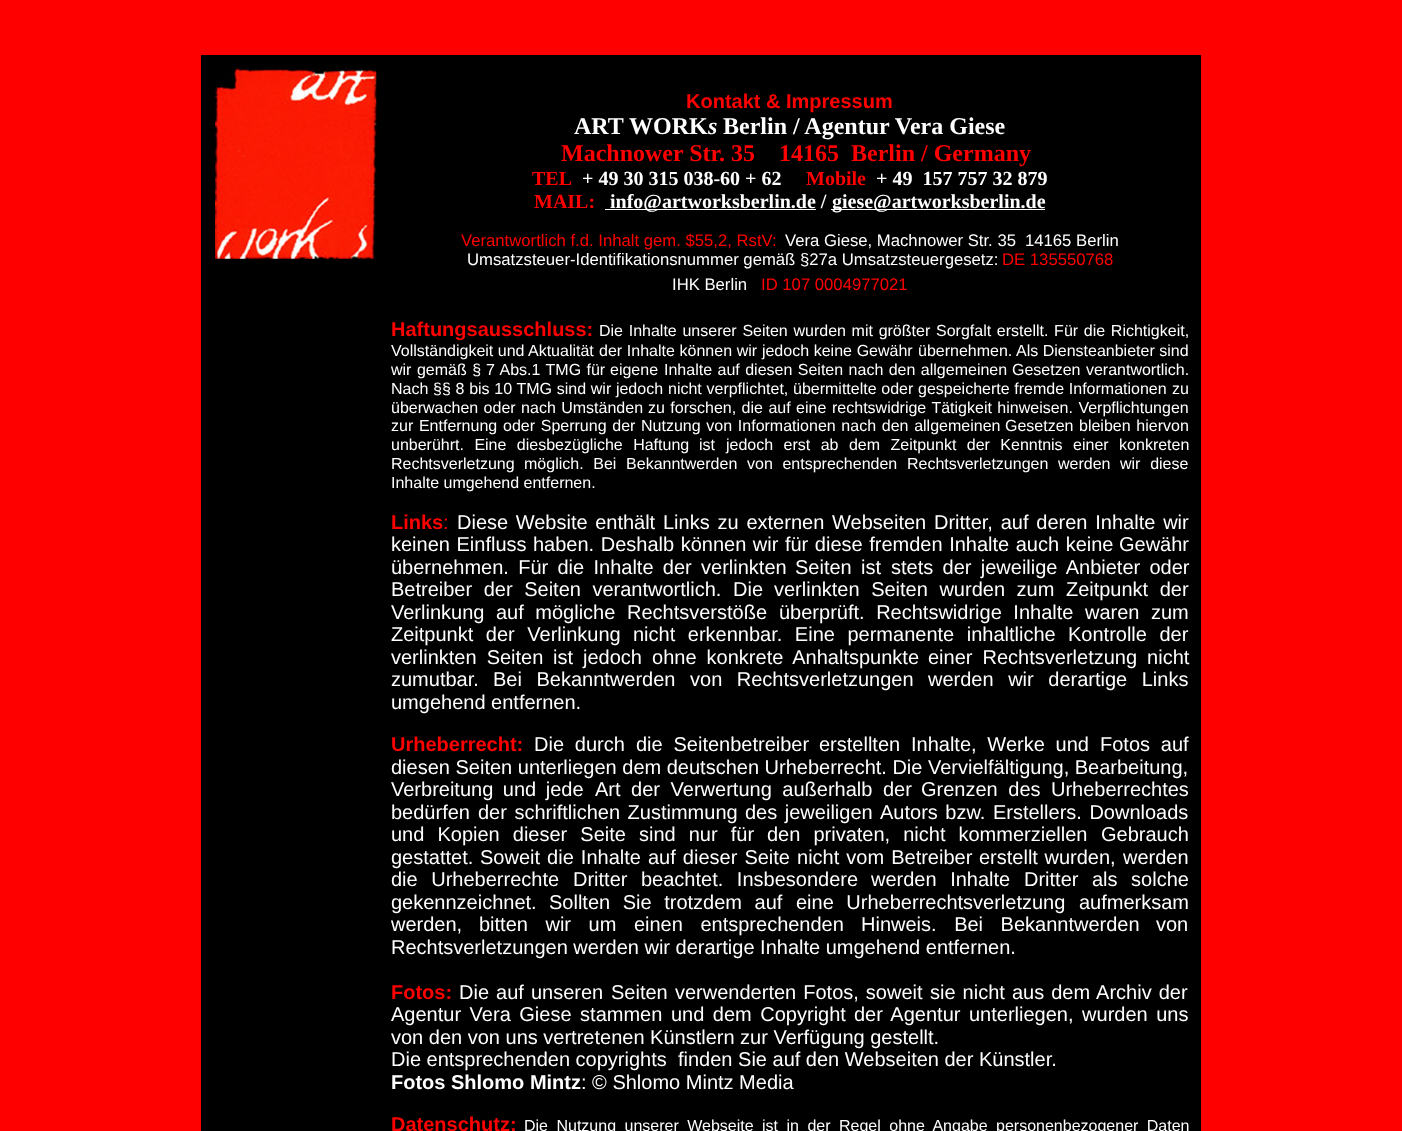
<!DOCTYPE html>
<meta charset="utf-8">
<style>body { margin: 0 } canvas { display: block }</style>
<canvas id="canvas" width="1402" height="1131"></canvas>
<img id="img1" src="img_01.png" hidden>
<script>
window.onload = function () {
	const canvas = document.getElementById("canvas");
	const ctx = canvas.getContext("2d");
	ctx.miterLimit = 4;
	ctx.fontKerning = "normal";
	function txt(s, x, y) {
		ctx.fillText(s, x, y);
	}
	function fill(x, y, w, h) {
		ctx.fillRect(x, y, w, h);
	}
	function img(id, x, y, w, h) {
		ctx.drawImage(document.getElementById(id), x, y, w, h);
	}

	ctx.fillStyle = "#FF0000";
	fill(0, 0, 1402, 1131);
	ctx.fillStyle = "#000000";
	fill(201, 55, 1000, 1076);
	img("img1", 215, 67, 162, 192);
	ctx.fillStyle = "#FFFFFF";
	fill(605, 209, 211, 1);
	fill(831, 209, 214, 1);
	ctx.font = "bold 20px Liberation Sans";
	ctx.fillStyle = "#FF0000";
	txt("Kontakt & Impressum", 686, 108);
	ctx.font = "bold 24px Liberation Serif";
	ctx.fillStyle = "#FFFFFF";
	txt("ART WORK", 574, 134);
	ctx.font = "italic bold 24px Liberation Serif";
	txt("s", 708, 134);
	ctx.font = "bold 24px Liberation Serif";
	txt("Berlin / Agentur Vera Giese", 723, 134);
	ctx.fillStyle = "#FF0000";
	txt("Machnower Str. 35", 561, 161);
	txt("14165", 779, 161);
	txt("Berlin / Germany", 851, 161);
	ctx.font = "bold 20px Liberation Serif";
	txt("TEL", 532, 185);
	ctx.fillStyle = "#FFFFFF";
	txt("+ 49 30 315 038-60 + 62", 582, 185);
	ctx.fillStyle = "#FF0000";
	txt("Mobile", 806, 185);
	ctx.fillStyle = "#FFFFFF";
	txt("+ 49  157 757 32 879", 876, 185);
	ctx.fillStyle = "#FF0000";
	txt("MAIL:", 534, 208);
	ctx.fillStyle = "#FFFFFF";
	txt("info@artworksberlin.de /", 610, 208);
	txt("giese@artworksberlin.de", 832, 208);
	ctx.font = "16.7px Liberation Sans";
	ctx.fillStyle = "#FF0000";
	txt("Verantwortlich f.d. Inhalt gem. $55,2, RstV:", 461, 246);
	ctx.fillStyle = "#FFFFFF";
	txt("Vera Giese, Machnower Str. 35", 785, 246);
	txt("14165 Berlin", 1025, 246);
	txt("Umsatzsteuer-Identifikationsnummer gemäß §27a Umsatzsteuergesetz:", 467, 265);
	ctx.fillStyle = "#FF0000";
	txt("DE 135550768", 1002, 265);
	ctx.fillStyle = "#FFFFFF";
	txt("IHK Berlin", 672, 290);
	ctx.fillStyle = "#FF0000";
	txt("ID 107 0004977021", 761, 290);
	ctx.font = "bold 20px Liberation Sans";
	txt("Haftungsausschluss:", 391, 336);
	ctx.wordSpacing = "1.25px";
	ctx.font = "16px Liberation Sans";
	ctx.fillStyle = "#FFFFFF";
	txt("Die Inhalte unserer Seiten wurden mit größter", 599, 336);
	txt("Sorgfalt erstellt. Für die Richtigkeit,", 936, 336);
	ctx.wordSpacing = "0px";
	txt("Vollständigkeit und", 391, 356);
	txt("Aktualität", 528, 356);
	ctx.wordSpacing = "0.25px";
	txt("der Inhalte können wir jedoch keine Gewähr", 599, 356);
	ctx.wordSpacing = "0px";
	txt("übernehmen.", 918, 356);
	txt("Als Diensteanbieter sind", 1016, 356);
	ctx.wordSpacing = "1px";
	txt("wir gemäß §", 391, 375);
	txt("7 Abs.1 TMG für", 486, 375);
	ctx.wordSpacing = "0px";
	txt("eigene", 610, 375);
	ctx.wordSpacing = "1px";
	txt("Inhalte auf diesen Seiten nach den allgemeinen", 664, 375);
	txt("Gesetzen verantwortlich.", 1012, 375);
	ctx.wordSpacing = "0.25px";
	txt("Nach §§ 8 bis 10 TMG sind wir jedoch", 391, 394);
	txt("nicht verpflichtet, übermittelte oder gespeicherte fremde Informationen", 668, 394);
	ctx.wordSpacing = "0px";
	txt("zu", 1172, 394);
	ctx.wordSpacing = "1px";
	txt("überwachen oder nach Umständen", 391, 413);
	txt("zu forschen, die auf eine", 648, 413);
	txt("rechtswidrige Tätigkeit hinweisen. Verpflichtungen", 832, 413);
	ctx.wordSpacing = "1.25px";
	txt("zur Entfernung", 391, 431);
	txt("oder Sperrung der Nutzung von Informationen nach den allgemeinen", 503, 431);
	ctx.wordSpacing = "0px";
	txt("Gesetzen", 1005, 431);
	ctx.wordSpacing = "1.25px";
	txt("bleiben hiervon", 1079, 431);
	ctx.wordSpacing = "6px";
	txt("unberührt. Eine diesbezügliche Haftung", 391, 450);
	ctx.wordSpacing = "0px";
	txt("ist", 699, 450);
	ctx.wordSpacing = "6px";
	txt("jedoch erst ab dem Zeitpunkt der Kenntnis einer konkreten", 726, 450);
	ctx.wordSpacing = "0px";
	txt("Rechtsverletzung", 391, 469);
	ctx.wordSpacing = "5.25px";
	txt("möglich. Bei Bekanntwerden von entsprechenden Rechtsverletzungen", 524, 469);
	ctx.wordSpacing = "0px";
	txt("werden", 1058, 469);
	ctx.wordSpacing = "5.25px";
	txt("wir diese", 1120, 469);
	ctx.wordSpacing = "0px";
	txt("Inhalte umgehend entfernen.", 391, 488);
	ctx.font = "bold 20px Liberation Sans";
	ctx.fillStyle = "#FF0000";
	txt("Links", 391, 529);
	ctx.font = "20px Liberation Sans";
	txt(":", 443, 529);
	ctx.wordSpacing = "2px";
	ctx.fillStyle = "#FFFFFF";
	txt("Diese Website enthält", 457, 529);
	ctx.wordSpacing = "2.25px";
	txt("Links zu externen Webseiten Dritter, auf deren Inhalte wir", 663, 529);
	ctx.wordSpacing = "1px";
	txt("keinen Einfluss", 391, 551);
	txt("haben. Deshalb können wir für diese fremden Inhalte auch keine", 533, 551);
	ctx.wordSpacing = "0px";
	txt("Gewähr", 1119, 551);
	ctx.wordSpacing = "3.75px";
	txt("übernehmen. Für die Inhalte der verlinkten", 391, 574);
	ctx.wordSpacing = "0px";
	txt("Seiten", 795, 574);
	txt("ist", 861, 574);
	ctx.wordSpacing = "3.75px";
	txt("stets der jeweilige Anbieter oder", 891, 574);
	ctx.wordSpacing = "6px";
	txt("Betreiber der Seiten verantwortlich.", 391, 596);
	ctx.wordSpacing = "0px";
	txt("Die", 733, 596);
	ctx.wordSpacing = "6px";
	txt("verlinkten Seiten wurden zum Zeitpunkt der", 774, 596);
	txt("Verlinkung auf mögliche", 391, 619);
	ctx.wordSpacing = "0px";
	txt("Rechtsverstöße", 627, 619);
	ctx.wordSpacing = "6px";
	txt("überprüft. Rechtswidrige Inhalte", 779, 619);
	ctx.wordSpacing = "0px";
	txt("waren", 1085, 619);
	txt("zum", 1151, 619);
	ctx.wordSpacing = "7px";
	txt("Zeitpunkt der Verlinkung", 391, 641);
	txt("nicht erkennbar. Eine permanente inhaltliche", 633, 641);
	txt("Kontrolle der", 1068, 641);
	ctx.wordSpacing = "4.5px";
	txt("verlinkten Seiten", 391, 664);
	txt("ist jedoch ohne konkrete Anhaltspunkte", 553, 664);
	txt("einer Rechtsverletzung nicht", 928, 664);
	ctx.wordSpacing = "0px";
	txt("zumutbar.", 391, 686);
	ctx.wordSpacing = "9px";
	txt("Bei Bekanntwerden von Rechtsverletzungen", 493, 686);
	txt("werden wir derartige Links", 928, 686);
	ctx.wordSpacing = "0px";
	txt("umgehend entfernen.", 391, 709);
	ctx.font = "bold 20px Liberation Sans";
	ctx.fillStyle = "#FF0000";
	txt("Urheberrecht:", 391, 751);
	ctx.wordSpacing = "5.25px";
	ctx.font = "20px Liberation Sans";
	ctx.fillStyle = "#FFFFFF";
	txt("Die durch", 534, 751);
	txt("die Seitenbetreiber", 636, 751);
	txt("erstellten Inhalte, Werke und", 819, 751);
	txt("Fotos auf", 1100, 751);
	ctx.wordSpacing = "0px";
	txt("diesen Seiten unterliegen dem deutschen Urheberrecht. Die Vervielfältigung, Bearbeitung,", 391, 774);
	ctx.wordSpacing = "4px";
	txt("Verbreitung und jede", 391, 796);
	ctx.wordSpacing = "5px";
	txt("Art der Verwertung außerhalb der", 595, 796);
	txt("Grenzen des", 921, 796);
	ctx.wordSpacing = "0px";
	txt("Urheberrechtes", 1051, 796);
	txt("bedürfen", 391, 819);
	ctx.wordSpacing = "2px";
	txt("der schriftlichen Zustimmung", 478, 819);
	txt("des jeweiligen", 745, 819);
	txt("Autors bzw. Erstellers. Downloads", 880, 819);
	ctx.wordSpacing = "7.5px";
	txt("und Kopien dieser Seite", 391, 841);
	txt("sind nur für", 639, 841);
	txt("den privaten, nicht kommerziellen", 767, 841);
	ctx.wordSpacing = "0px";
	txt("Gebrauch", 1101, 841);
	txt("gestattet.", 391, 864);
	ctx.wordSpacing = "1.5px";
	txt("Soweit die Inhalte", 480, 864);
	txt("auf dieser Seite nicht vom Betreiber", 648, 864);
	ctx.wordSpacing = "1px";
	txt("erstellt wurden,", 979, 864);
	ctx.wordSpacing = "0px";
	txt("werden", 1123, 864);
	ctx.wordSpacing = "8px";
	txt("die Urheberrechte", 391, 886);
	txt("Dritter beachtet. Insbesondere", 573, 886);
	txt("werden Inhalte", 871, 886);
	ctx.wordSpacing = "0px";
	txt("Dritter", 1024, 886);
	ctx.wordSpacing = "8px";
	txt("als solche", 1092, 886);
	ctx.wordSpacing = "0px";
	txt("gekennzeichnet.", 391, 909);
	ctx.wordSpacing = "7px";
	txt("Sollten Sie trotzdem auf", 549, 909);
	txt("eine Urheberrechtsverletzung", 796, 909);
	ctx.wordSpacing = "0px";
	txt("aufmerksam", 1079, 909);
	txt("werden,", 391, 931);
	ctx.wordSpacing = "12px";
	txt("bitten wir um einen entsprechenden", 479, 931);
	txt("Hinweis. Bei Bekanntwerden", 861, 931);
	ctx.wordSpacing = "0px";
	txt("von", 1156, 931);
	txt("Rechtsverletzungen werden wir derartige Inhalte umgehend entfernen.", 391, 954);
	ctx.font = "bold 20px Liberation Sans";
	ctx.fillStyle = "#FF0000";
	txt("Fotos:", 391, 999);
	ctx.wordSpacing = "1.5px";
	ctx.font = "20px Liberation Sans";
	ctx.fillStyle = "#FFFFFF";
	txt("Die auf unseren", 459, 999);
	ctx.wordSpacing = "0px";
	txt("Seiten", 611, 999);
	ctx.wordSpacing = "1.5px";
	txt("verwenderten Fotos, soweit", 675, 999);
	txt("sie nicht aus dem Archiv der", 930, 999);
	ctx.wordSpacing = "3px";
	txt("Agentur Vera Giese stammen und dem Copyright", 391, 1021);
	txt("der Agentur", 854, 1021);
	txt("unterliegen, wurden uns", 969, 1021);
	ctx.wordSpacing = "0px";
	txt("von den von uns vertretenen Künstlern zur Verfügung gestellt.", 391, 1044);
	txt("Die entsprechenden copyrights", 391, 1066);
	txt("finden Sie auf den Webseiten der Künstler.", 678, 1066);
	ctx.font = "bold 20px Liberation Sans";
	txt("Fotos Shlomo Mintz", 391, 1089);
	ctx.font = "20px Liberation Sans";
	txt(": © Shlomo Mintz Media", 581, 1089);
	ctx.font = "bold 20px Liberation Sans";
	ctx.fillStyle = "#FF0000";
	txt("Datenschutz:", 391, 1131);
	ctx.wordSpacing = "4px";
	ctx.font = "16px Liberation Sans";
	ctx.fillStyle = "#FFFFFF";
	txt("Die Nutzung unserer Webseite ist in der", 524, 1131);
	txt("Regel ohne Angabe personenbezogener Daten", 839, 1131);
};
</script>
